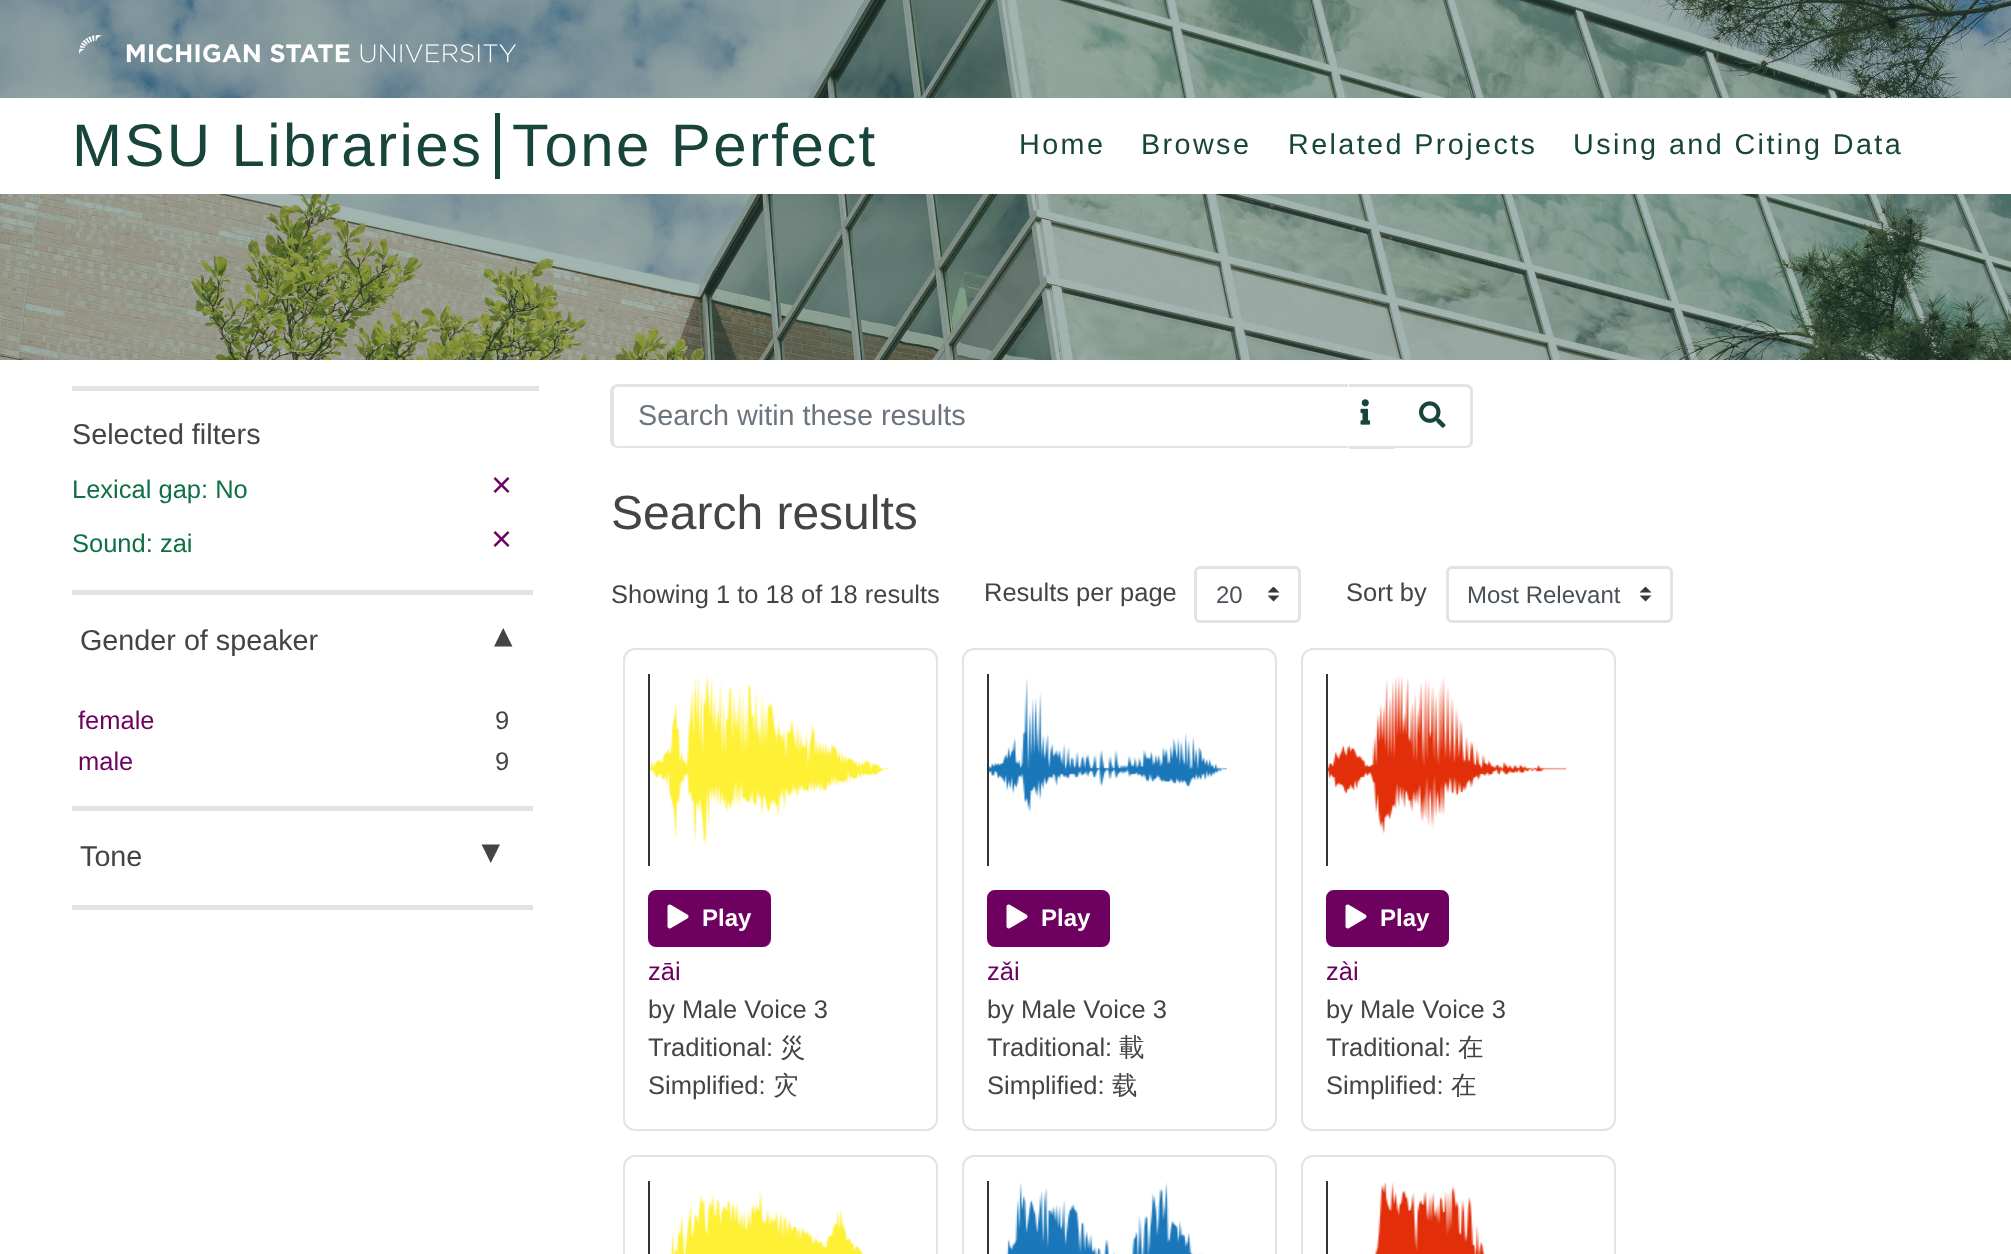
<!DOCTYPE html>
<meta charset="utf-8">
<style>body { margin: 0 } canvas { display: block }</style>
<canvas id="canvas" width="2011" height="1254"></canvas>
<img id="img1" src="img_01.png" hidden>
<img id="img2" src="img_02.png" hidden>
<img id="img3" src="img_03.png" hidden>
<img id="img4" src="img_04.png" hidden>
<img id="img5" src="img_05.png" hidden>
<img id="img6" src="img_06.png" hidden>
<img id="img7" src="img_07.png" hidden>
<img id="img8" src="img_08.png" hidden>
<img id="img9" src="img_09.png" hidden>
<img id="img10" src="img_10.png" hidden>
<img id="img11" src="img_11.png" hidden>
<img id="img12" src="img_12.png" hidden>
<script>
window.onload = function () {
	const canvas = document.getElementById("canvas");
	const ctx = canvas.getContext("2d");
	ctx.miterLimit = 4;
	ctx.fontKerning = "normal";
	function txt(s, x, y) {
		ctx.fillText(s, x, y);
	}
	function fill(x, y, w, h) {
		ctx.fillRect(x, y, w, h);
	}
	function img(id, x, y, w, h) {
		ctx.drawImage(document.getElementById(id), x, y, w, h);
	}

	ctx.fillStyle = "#FFFFFF";
	fill(0, 0, 2011, 1254);
	img("img1", 0, 0, 2011, 360);
	img("img2", 79, 35, 437, 28);
	fill(0, 98, 2011, 96);
	ctx.fillStyle = "#18453B";
	fill(495, 113, 5, 66);
	ctx.fillStyle = "#E3E3E3";
	ctx.beginPath();
	ctx.moveTo(618, 384);
	ctx.lineTo(1348, 384);
	ctx.lineTo(1348, 448);
	ctx.lineTo(618, 448);
	ctx.bezierCurveTo(614, 448, 610, 445, 610, 441);
	ctx.lineTo(610, 391);
	ctx.bezierCurveTo(610, 387, 614, 384, 618, 384);
	ctx.closePath();
	ctx.moveTo(618, 387);
	ctx.lineTo(1348, 387);
	ctx.lineTo(1348, 446);
	ctx.lineTo(618, 446);
	ctx.bezierCurveTo(615, 446, 614, 444, 614, 441);
	ctx.lineTo(614, 391);
	ctx.bezierCurveTo(614, 389, 615, 387, 618, 387);
	ctx.closePath();
	ctx.fill("evenodd");
	fill(1349, 384, 48, 3);
	fill(1349, 446, 48, 3);
	img("img3", 1360, 399, 11, 26);
	ctx.fillStyle = "#FFFFFF";
	ctx.beginPath();
	ctx.roundRect(1395, 384, 78, 65, [0, 8, 8, 0]);
	ctx.fill();
	ctx.fillStyle = "#E3E3E3";
	ctx.beginPath();
	ctx.moveTo(1395, 384);
	ctx.lineTo(1466, 384);
	ctx.bezierCurveTo(1470, 384, 1473, 387, 1473, 391);
	ctx.lineTo(1473, 441);
	ctx.bezierCurveTo(1473, 445, 1470, 448, 1466, 448);
	ctx.lineTo(1395, 448);
	ctx.closePath();
	ctx.moveTo(1395, 387);
	ctx.lineTo(1466, 387);
	ctx.bezierCurveTo(1468, 387, 1470, 389, 1470, 391);
	ctx.lineTo(1470, 441);
	ctx.bezierCurveTo(1470, 444, 1468, 446, 1466, 446);
	ctx.lineTo(1395, 446);
	ctx.closePath();
	ctx.fill("evenodd");
	img("img4", 1419, 401, 27, 27);
	fill(72, 386, 467, 5);
	fill(72, 590, 461, 5);
	fill(72, 806, 461, 5);
	fill(72, 905, 461, 5);
	img("img5", 1268, 587, 12, 15);
	ctx.beginPath();
	ctx.roundRect(1195.5, 567.5, 104, 54, 4.5);
	ctx.strokeStyle = "#E3E3E3";
	ctx.lineWidth = 3;
	ctx.stroke();
	img("img5", 1640, 587, 12, 15);
	ctx.beginPath();
	ctx.roundRect(1447.5, 567.5, 224, 54, 4.5);
	ctx.stroke();
	ctx.beginPath();
	ctx.roundRect(624, 649, 313, 481, 11);
	ctx.lineWidth = 2;
	ctx.stroke();
	ctx.fillStyle = "#333333";
	fill(648, 674, 2, 192);
	img("img6", 650, 675, 238, 170);
	ctx.fillStyle = "#6E005F";
	ctx.beginPath();
	ctx.roundRect(649, 891, 121, 55, 7);
	ctx.fill();
	ctx.strokeStyle = "#6E005F";
	ctx.stroke();
	img("img7", 667, 904, 22, 25);
	ctx.beginPath();
	ctx.roundRect(963, 649, 313, 481, 11);
	ctx.strokeStyle = "#E3E3E3";
	ctx.stroke();
	ctx.fillStyle = "#333333";
	fill(987, 674, 2, 192);
	img("img8", 989, 678, 238, 134);
	ctx.fillStyle = "#6E005F";
	ctx.beginPath();
	ctx.roundRect(988, 891, 121, 55, 7);
	ctx.fill();
	ctx.strokeStyle = "#6E005F";
	ctx.stroke();
	img("img7", 1006, 904, 22, 25);
	ctx.beginPath();
	ctx.roundRect(1302, 649, 313, 481, 11);
	ctx.strokeStyle = "#E3E3E3";
	ctx.stroke();
	ctx.fillStyle = "#333333";
	fill(1326, 674, 2, 192);
	img("img9", 1328, 676, 238, 158);
	ctx.fillStyle = "#6E005F";
	ctx.beginPath();
	ctx.roundRect(1327, 891, 121, 55, 7);
	ctx.fill();
	ctx.strokeStyle = "#6E005F";
	ctx.stroke();
	img("img7", 1345, 904, 22, 25);
	ctx.beginPath();
	ctx.roundRect(624, 1156, 313, 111, 11);
	ctx.strokeStyle = "#E3E3E3";
	ctx.stroke();
	ctx.fillStyle = "#333333";
	fill(648, 1181, 2, 73);
	img("img10", 670, 1189, 194, 65);
	ctx.beginPath();
	ctx.roundRect(963, 1156, 313, 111, 11);
	ctx.stroke();
	fill(987, 1181, 2, 73);
	img("img11", 1006, 1182, 198, 72);
	ctx.beginPath();
	ctx.roundRect(1302, 1156, 313, 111, 11);
	ctx.stroke();
	fill(1326, 1181, 2, 73);
	img("img12", 1375, 1182, 111, 72);
	ctx.letterSpacing = "2.4px";
	ctx.font = "60px Liberation Sans";
	ctx.fillStyle = "#18453B";
	txt("MSU Libraries", 72, 166);
	txt("Tone Perfect", 512, 166);
	ctx.font = "28.75px Liberation Sans";
	txt("Home", 1019, 154);
	txt("Browse", 1141, 154);
	txt("Related Projects", 1288, 154);
	txt("Using and Citing Data", 1573, 154);
	ctx.letterSpacing = "0px";
	ctx.fillStyle = "#6C757D";
	txt("Search witin these results", 638, 425);
	ctx.fillStyle = "#444444";
	txt("Selected filters", 72, 444);
	ctx.font = "25.5px Liberation Sans";
	ctx.fillStyle = "#107045";
	txt("Lexical gap: No", 72, 498);
	ctx.font = "36px Liberation Sans";
	ctx.fillStyle = "#6E005F";
	txt("×", 491, 497);
	ctx.font = "25.5px Liberation Sans";
	ctx.fillStyle = "#107045";
	txt("Sound: zai", 72, 552);
	ctx.font = "36px Liberation Sans";
	ctx.fillStyle = "#6E005F";
	txt("×", 491, 551);
	ctx.font = "28.75px Liberation Sans";
	ctx.fillStyle = "#444444";
	txt("Gender of speaker", 80, 650);
	ctx.font = "24px DejaVu Sans";
	ctx.save();
	ctx.translate(497, 628);
	ctx.rotate(90 * Math.PI / 180);
	ctx.fillText("◀", 0, 0);
	ctx.restore();
	ctx.font = "25.5px Liberation Sans";
	ctx.fillStyle = "#6E005F";
	txt("female", 78, 729);
	ctx.fillStyle = "#444444";
	txt("9", 495, 729);
	ctx.fillStyle = "#6E005F";
	txt("male", 78, 770);
	ctx.fillStyle = "#444444";
	txt("9", 495, 770);
	ctx.font = "28.75px Liberation Sans";
	txt("Tone", 80, 866);
	ctx.font = "24px DejaVu Sans";
	ctx.save();
	ctx.translate(497, 863);
	ctx.rotate(-90 * Math.PI / 180);
	ctx.fillText("◀", 0, 0);
	ctx.restore();
	ctx.font = "48px Liberation Sans";
	txt("Search results", 611, 529);
	ctx.font = "25.5px Liberation Sans";
	txt("Showing 1 to 18 of 18 results", 611, 603);
	txt("Results per page", 984, 601);
	ctx.font = "24px Liberation Sans";
	ctx.fillStyle = "#495057";
	txt("20", 1216, 603);
	ctx.font = "25.5px Liberation Sans";
	ctx.fillStyle = "#444444";
	txt("Sort by", 1346, 601);
	ctx.font = "24px Liberation Sans";
	ctx.fillStyle = "#495057";
	txt("Most Relevant", 1467, 603);
	ctx.font = "bold 24px Liberation Sans";
	ctx.fillStyle = "#FFFFFF";
	txt("Play", 702, 926);
	ctx.font = "25.5px Liberation Sans";
	ctx.fillStyle = "#6E005F";
	txt("zāi", 648, 980);
	ctx.fillStyle = "#444444";
	txt("by Male Voice 3", 648, 1018);
	txt("Traditional:", 648, 1056);
	ctx.font = "500 25.5px WenQuanYi Zen Hei";
	txt("災", 780, 1056);
	ctx.font = "25.5px Liberation Sans";
	txt("Simplified:", 648, 1094);
	ctx.font = "500 25.5px WenQuanYi Zen Hei";
	txt("灾", 773, 1094);
	ctx.font = "bold 24px Liberation Sans";
	ctx.fillStyle = "#FFFFFF";
	txt("Play", 1041, 926);
	ctx.font = "25.5px Liberation Sans";
	ctx.fillStyle = "#6E005F";
	txt("zǎi", 987, 980);
	ctx.fillStyle = "#444444";
	txt("by Male Voice 3", 987, 1018);
	txt("Traditional:", 987, 1056);
	ctx.font = "500 25.5px WenQuanYi Zen Hei";
	txt("載", 1119, 1056);
	ctx.font = "25.5px Liberation Sans";
	txt("Simplified:", 987, 1094);
	ctx.font = "500 25.5px WenQuanYi Zen Hei";
	txt("载", 1112, 1094);
	ctx.font = "bold 24px Liberation Sans";
	ctx.fillStyle = "#FFFFFF";
	txt("Play", 1380, 926);
	ctx.font = "25.5px Liberation Sans";
	ctx.fillStyle = "#6E005F";
	txt("zài", 1326, 980);
	ctx.fillStyle = "#444444";
	txt("by Male Voice 3", 1326, 1018);
	txt("Traditional:", 1326, 1056);
	ctx.font = "500 25.5px WenQuanYi Zen Hei";
	txt("在", 1458, 1056);
	ctx.font = "25.5px Liberation Sans";
	txt("Simplified:", 1326, 1094);
	ctx.font = "500 25.5px WenQuanYi Zen Hei";
	txt("在", 1451, 1094);
};
</script>
